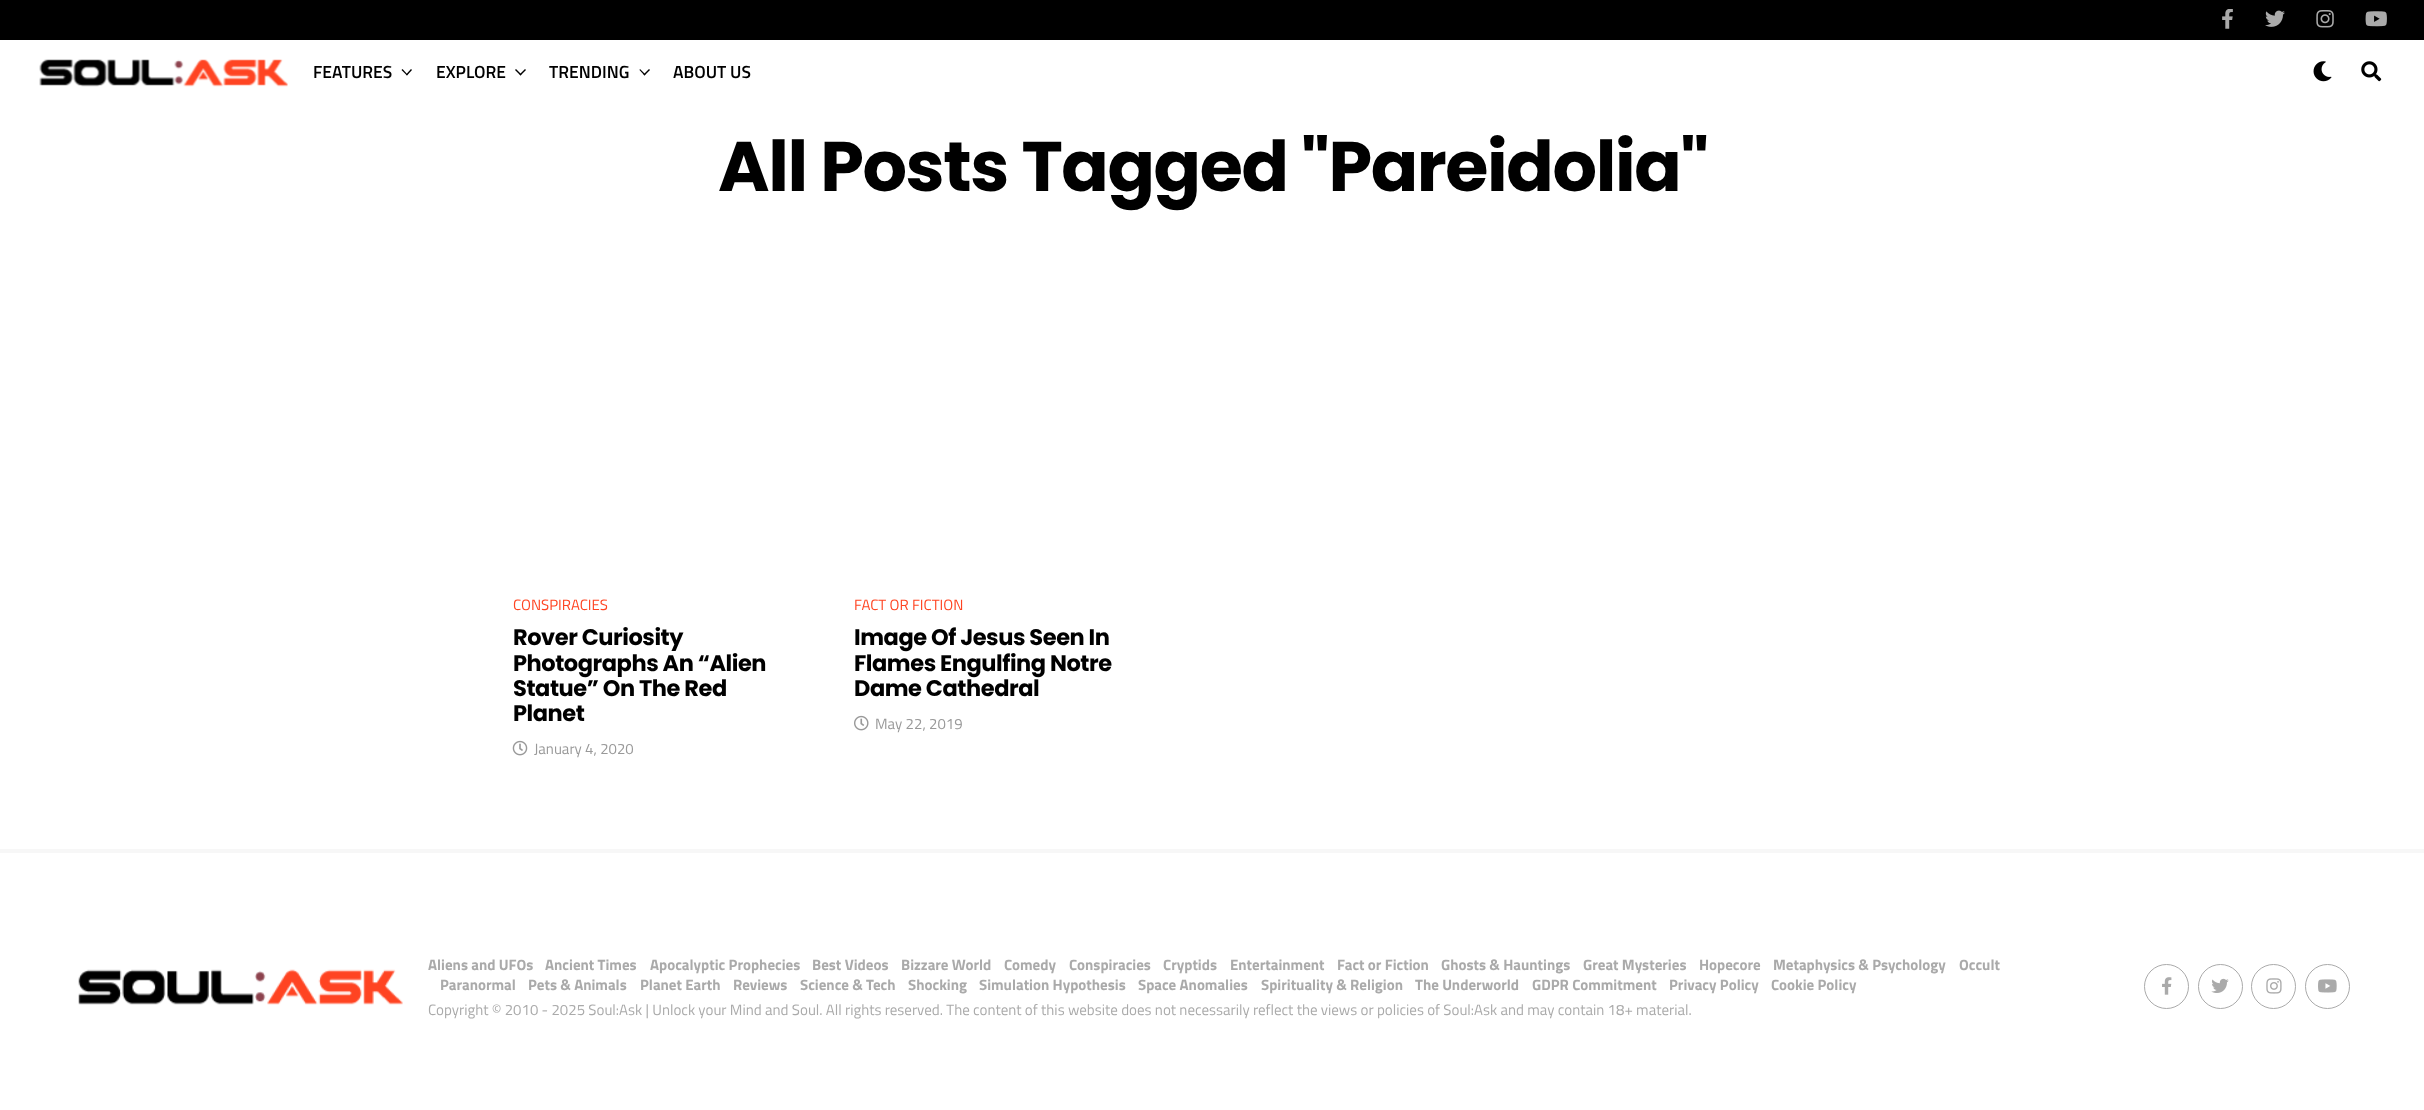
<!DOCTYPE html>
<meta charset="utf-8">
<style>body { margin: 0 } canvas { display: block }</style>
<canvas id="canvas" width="2424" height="1110"></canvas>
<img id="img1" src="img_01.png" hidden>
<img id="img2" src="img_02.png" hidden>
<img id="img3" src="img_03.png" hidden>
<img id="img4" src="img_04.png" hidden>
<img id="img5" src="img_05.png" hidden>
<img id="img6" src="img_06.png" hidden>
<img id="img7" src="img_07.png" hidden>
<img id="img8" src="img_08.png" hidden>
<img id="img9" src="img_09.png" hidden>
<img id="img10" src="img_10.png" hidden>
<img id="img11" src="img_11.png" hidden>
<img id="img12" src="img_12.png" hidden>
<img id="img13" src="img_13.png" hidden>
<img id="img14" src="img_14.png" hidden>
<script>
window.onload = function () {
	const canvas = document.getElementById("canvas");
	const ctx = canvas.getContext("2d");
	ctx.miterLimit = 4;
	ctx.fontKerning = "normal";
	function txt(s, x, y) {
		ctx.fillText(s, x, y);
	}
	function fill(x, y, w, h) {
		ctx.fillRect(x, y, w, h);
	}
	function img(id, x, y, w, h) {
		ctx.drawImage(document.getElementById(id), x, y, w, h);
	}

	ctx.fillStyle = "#FFFFFF";
	fill(0, 0, 2424, 1110);
	ctx.fillStyle = "#000000";
	fill(0, 0, 2424, 40);
	img("img1", 2222, 9, 11, 20);
	img("img2", 2265, 10, 20, 17);
	img("img3", 2316, 10, 18, 18);
	img("img4", 2365, 11, 22, 16);
	img("img5", 39, 59, 249, 28);
	ctx.beginPath();
	ctx.moveTo(411, 69);
	ctx.lineTo(412, 70);
	ctx.lineTo(407, 75.5);
	ctx.lineTo(406, 74.5);
	ctx.closePath();
	ctx.fill();
	ctx.beginPath();
	ctx.moveTo(402.5, 69);
	ctx.lineTo(407.5, 74.5);
	ctx.lineTo(407, 75.5);
	ctx.lineTo(401.5, 70);
	ctx.closePath();
	ctx.fill();
	ctx.beginPath();
	ctx.moveTo(525, 69);
	ctx.lineTo(526, 70);
	ctx.lineTo(520.5, 75.5);
	ctx.lineTo(519.5, 74.5);
	ctx.closePath();
	ctx.fill();
	ctx.beginPath();
	ctx.moveTo(516, 69);
	ctx.lineTo(521.5, 74.5);
	ctx.lineTo(520.5, 75.5);
	ctx.lineTo(515, 70);
	ctx.closePath();
	ctx.fill();
	ctx.beginPath();
	ctx.moveTo(649, 69);
	ctx.lineTo(650, 70);
	ctx.lineTo(644.5, 75.5);
	ctx.lineTo(643.5, 74.5);
	ctx.closePath();
	ctx.fill();
	ctx.beginPath();
	ctx.moveTo(640, 69);
	ctx.lineTo(645.5, 74.5);
	ctx.lineTo(644.5, 75.5);
	ctx.lineTo(639.5, 70);
	ctx.closePath();
	ctx.fill();
	img("img6", 2313, 61, 19, 21);
	img("img7", 2361, 61, 21, 21);
	img("img8", 512, 740, 16, 16);
	img("img9", 854, 715, 15, 16);
	ctx.fillStyle = "#F7F7F7";
	fill(0, 849, 2424, 4);
	img("img10", 78, 969, 325, 36);
	ctx.beginPath();
	ctx.arc(2166.5, 986.5, 22, 0, Math.PI * 2);
	ctx.strokeStyle = "#AAAAAA";
	ctx.stroke();
	img("img11", 2162, 977, 10, 18);
	ctx.beginPath();
	ctx.arc(2220.5, 986.5, 22, 0, Math.PI * 2);
	ctx.stroke();
	img("img12", 2211, 978, 18, 15);
	ctx.beginPath();
	ctx.arc(2273.5, 986.5, 22, 0, Math.PI * 2);
	ctx.stroke();
	img("img13", 2266, 978, 16, 16);
	ctx.beginPath();
	ctx.arc(2327.5, 986.5, 22, 0, Math.PI * 2);
	ctx.stroke();
	img("img14", 2318, 979, 19, 14);
	ctx.font = "600 17.5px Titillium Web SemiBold";
	ctx.fillStyle = "#000000";
	txt("FEATURES", 313, 78);
	txt("EXPLORE", 436, 78);
	txt("TRENDING", 549, 78);
	txt("ABOUT US", 673, 78);
	ctx.letterSpacing = "-1.4px";
	ctx.font = "bold 70px Poppins";
	txt("All Posts Tagged \"Pareidolia\"", 718, 191);
	ctx.letterSpacing = "0px";
	ctx.font = "15px Titillium Web";
	ctx.fillStyle = "#FF4422";
	txt("CONSPIRACIES", 513, 610);
	ctx.letterSpacing = "-0.45px";
	ctx.font = "bold 22.5px Poppins";
	ctx.fillStyle = "#000000";
	txt("Rover Curiosity", 513, 645);
	txt("Photographs An “Alien", 513, 671);
	txt("Statue” On The Red", 513, 696);
	txt("Planet", 513, 721);
	ctx.letterSpacing = "0px";
	ctx.font = "15px Titillium Web";
	ctx.fillStyle = "#999999";
	txt("January 4, 2020", 534, 754);
	ctx.fillStyle = "#FF4422";
	txt("FACT OR FICTION", 854, 610);
	ctx.letterSpacing = "-0.45px";
	ctx.font = "bold 22.5px Poppins";
	ctx.fillStyle = "#000000";
	txt("Image Of Jesus Seen In", 854, 645);
	txt("Flames Engulfing Notre", 854, 671);
	txt("Dame Cathedral", 854, 696);
	ctx.letterSpacing = "0px";
	ctx.font = "15px Titillium Web";
	ctx.fillStyle = "#999999";
	txt("May 22, 2019", 875, 729);
	ctx.font = "bold 15px Titillium Web";
	ctx.fillStyle = "#AAAAAA";
	txt("Aliens and UFOs", 428, 970);
	txt("Ancient Times", 545, 970);
	txt("Apocalyptic Prophecies", 650, 970);
	txt("Best Videos", 812, 970);
	txt("Bizzare World", 901, 970);
	txt("Comedy", 1004, 970);
	txt("Conspiracies", 1069, 970);
	txt("Cryptids", 1163, 970);
	txt("Entertainment", 1230, 970);
	txt("Fact or Fiction", 1337, 970);
	txt("Ghosts & Hauntings", 1441, 970);
	txt("Great Mysteries", 1583, 970);
	txt("Hopecore", 1699, 970);
	txt("Metaphysics & Psychology", 1773, 970);
	txt("Occult", 1959, 970);
	txt("Paranormal", 440, 990);
	txt("Pets & Animals", 528, 990);
	txt("Planet Earth", 640, 990);
	txt("Reviews", 733, 990);
	txt("Science & Tech", 800, 990);
	txt("Shocking", 908, 990);
	txt("Simulation Hypothesis", 979, 990);
	txt("Space Anomalies", 1138, 990);
	txt("Spirituality & Religion", 1261, 990);
	txt("The Underworld", 1415, 990);
	txt("GDPR Commitment", 1532, 990);
	txt("Privacy Policy", 1669, 990);
	txt("Cookie Policy", 1771, 990);
	ctx.font = "15px Titillium Web";
	txt("Copyright © 2010 - 2025 Soul:Ask | Unlock your Mind and Soul. All rights reserved. The content of this website does not necessarily reflect the views or policies of Soul:Ask and may contain 18+ material.", 428, 1015);
};
</script>
